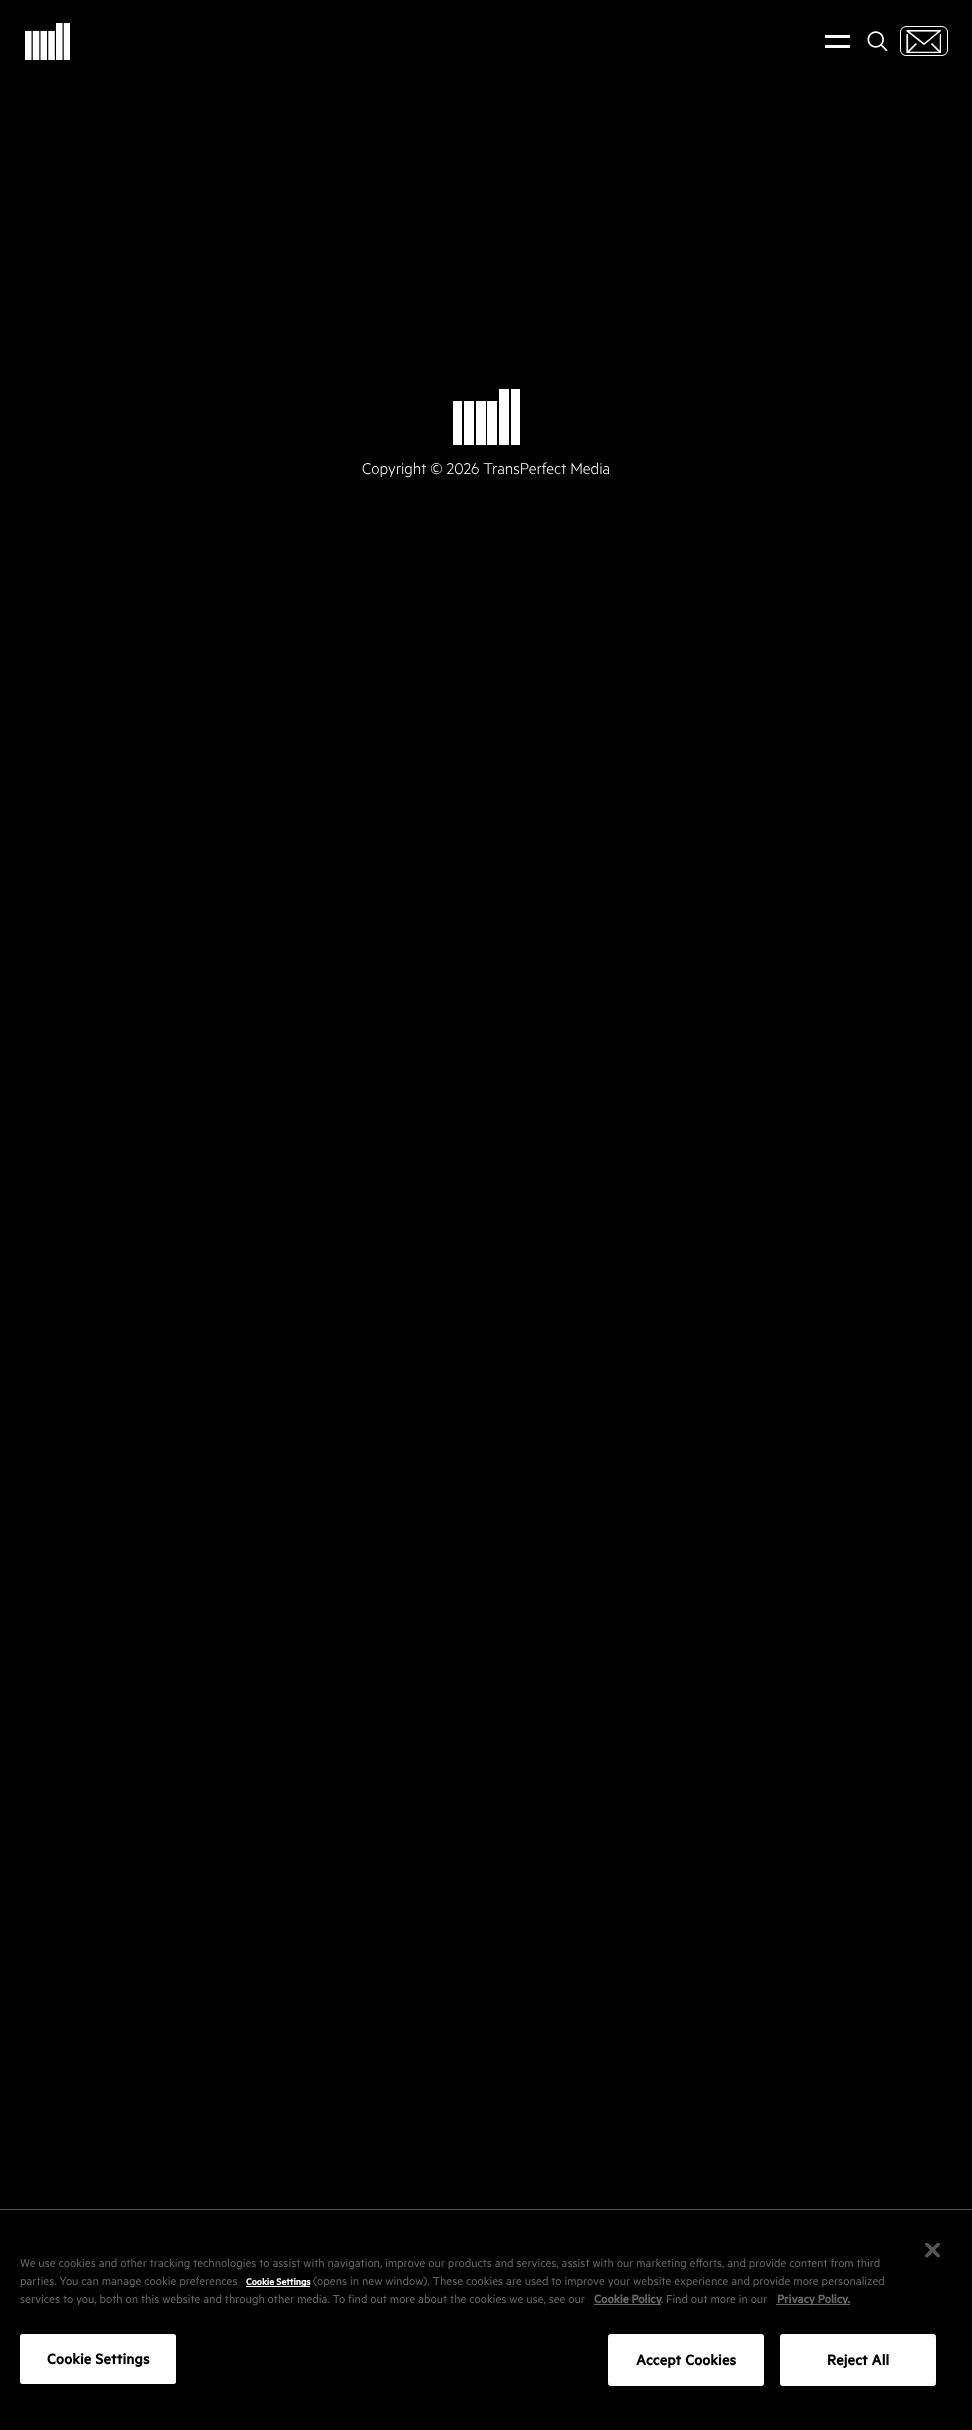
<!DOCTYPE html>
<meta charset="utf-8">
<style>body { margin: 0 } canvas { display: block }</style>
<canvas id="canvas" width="972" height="2430"></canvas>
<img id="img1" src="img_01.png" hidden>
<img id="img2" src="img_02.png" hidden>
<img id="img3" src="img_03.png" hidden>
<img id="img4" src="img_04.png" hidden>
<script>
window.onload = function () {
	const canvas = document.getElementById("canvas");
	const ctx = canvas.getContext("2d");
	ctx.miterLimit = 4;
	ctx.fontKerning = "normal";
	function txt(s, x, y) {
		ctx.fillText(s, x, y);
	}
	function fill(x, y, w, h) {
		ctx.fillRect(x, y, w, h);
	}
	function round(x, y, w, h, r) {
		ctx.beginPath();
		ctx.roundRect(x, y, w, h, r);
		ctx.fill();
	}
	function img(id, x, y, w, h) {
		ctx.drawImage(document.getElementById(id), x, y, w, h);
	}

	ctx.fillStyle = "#000000";
	fill(0, 0, 972, 2430);
	img("img1", 25, 23, 45, 37);
	ctx.fillStyle = "#FFFFFF";
	fill(825, 35, 25, 3);
	fill(825, 45, 25, 3);
	img("img2", 867, 31, 21, 20);
	ctx.beginPath();
	ctx.roundRect(900.5, 26.5, 47, 29, 5.5);
	ctx.strokeStyle = "#FFFFFF";
	ctx.stroke();
	img("img3", 906, 30, 35, 23);
	ctx.save();
	ctx.beginPath();
	ctx.rect(453, 389, 67, 56);
	ctx.clip();
	ctx.beginPath();
	ctx.moveTo(476, 445);
	ctx.lineTo(486, 445);
	ctx.lineTo(486, 401);
	ctx.lineTo(476, 401);
	ctx.closePath();
	ctx.moveTo(464, 445);
	ctx.lineTo(474, 445);
	ctx.lineTo(474, 401);
	ctx.lineTo(464, 401);
	ctx.closePath();
	ctx.moveTo(453, 445);
	ctx.lineTo(462, 445);
	ctx.lineTo(462, 401);
	ctx.lineTo(452, 401);
	ctx.lineTo(452, 445);
	ctx.closePath();
	ctx.moveTo(487, 445);
	ctx.lineTo(497, 445);
	ctx.lineTo(497, 401);
	ctx.lineTo(487, 401);
	ctx.closePath();
	ctx.moveTo(511, 389);
	ctx.lineTo(511, 445);
	ctx.lineTo(520, 445);
	ctx.lineTo(520, 389);
	ctx.closePath();
	ctx.moveTo(499, 445);
	ctx.lineTo(509, 445);
	ctx.lineTo(509, 389);
	ctx.lineTo(499, 389);
	ctx.closePath();
	ctx.fill();
	ctx.restore();
	ctx.fillStyle = "#555555";
	fill(0, 2209, 972, 1);
	img("img4", 925, 2243, 15, 15);
	ctx.fillStyle = "#FFFFFF";
	fill(246, 2286, 64, 1);
	ctx.fillStyle = "#666666";
	fill(594, 2304, 67, 1);
	fill(776, 2304, 74, 1);
	ctx.fillStyle = "#FFFFFF";
	round(20, 2334, 156, 50, 2.5);
	ctx.beginPath();
	ctx.roundRect(608.5, 2334.5, 155, 51, 2);
	ctx.fill();
	ctx.stroke();
	ctx.beginPath();
	ctx.roundRect(780.5, 2334.5, 155, 51, 2);
	ctx.fill();
	ctx.stroke();
	ctx.font = "300 17.5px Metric";
	txt("Copyright © 2026 TransPerfect Media", 362, 474);
	ctx.font = "13px Metric";
	ctx.fillStyle = "#666666";
	txt("We use cookies and other tracking technologies to assist with navigation, improve our products and services, assist with our marketing efforts, and provide content from third", 20, 2267);
	txt("parties. You can manage cookie preferences", 20, 2285);
	ctx.font = "bold 10.5px Metric";
	ctx.fillStyle = "#FFFFFF";
	txt("Cookie Settings", 246, 2285);
	ctx.font = "13px Metric";
	ctx.fillStyle = "#666666";
	txt("(opens in new window). These cookies are used to improve your website experience and provide more personalized", 313, 2285);
	txt("services to you, both on this website and through other media. To find out more about the cookies we use, see our", 20, 2303);
	ctx.font = "bold 13px Metric";
	txt("Cookie Policy", 594, 2303);
	ctx.font = "13px Metric";
	txt(". Find out more in our", 661, 2303);
	ctx.font = "bold 13px Metric";
	txt("Privacy Policy.", 777, 2303);
	ctx.letterSpacing = "0.2px";
	ctx.font = "bold 16.25px Metric";
	ctx.fillStyle = "#000000";
	txt("Cookie Settings", 47, 2364);
	txt("Accept Cookies", 636, 2365);
	txt("Reject All", 827, 2365);
};
</script>
